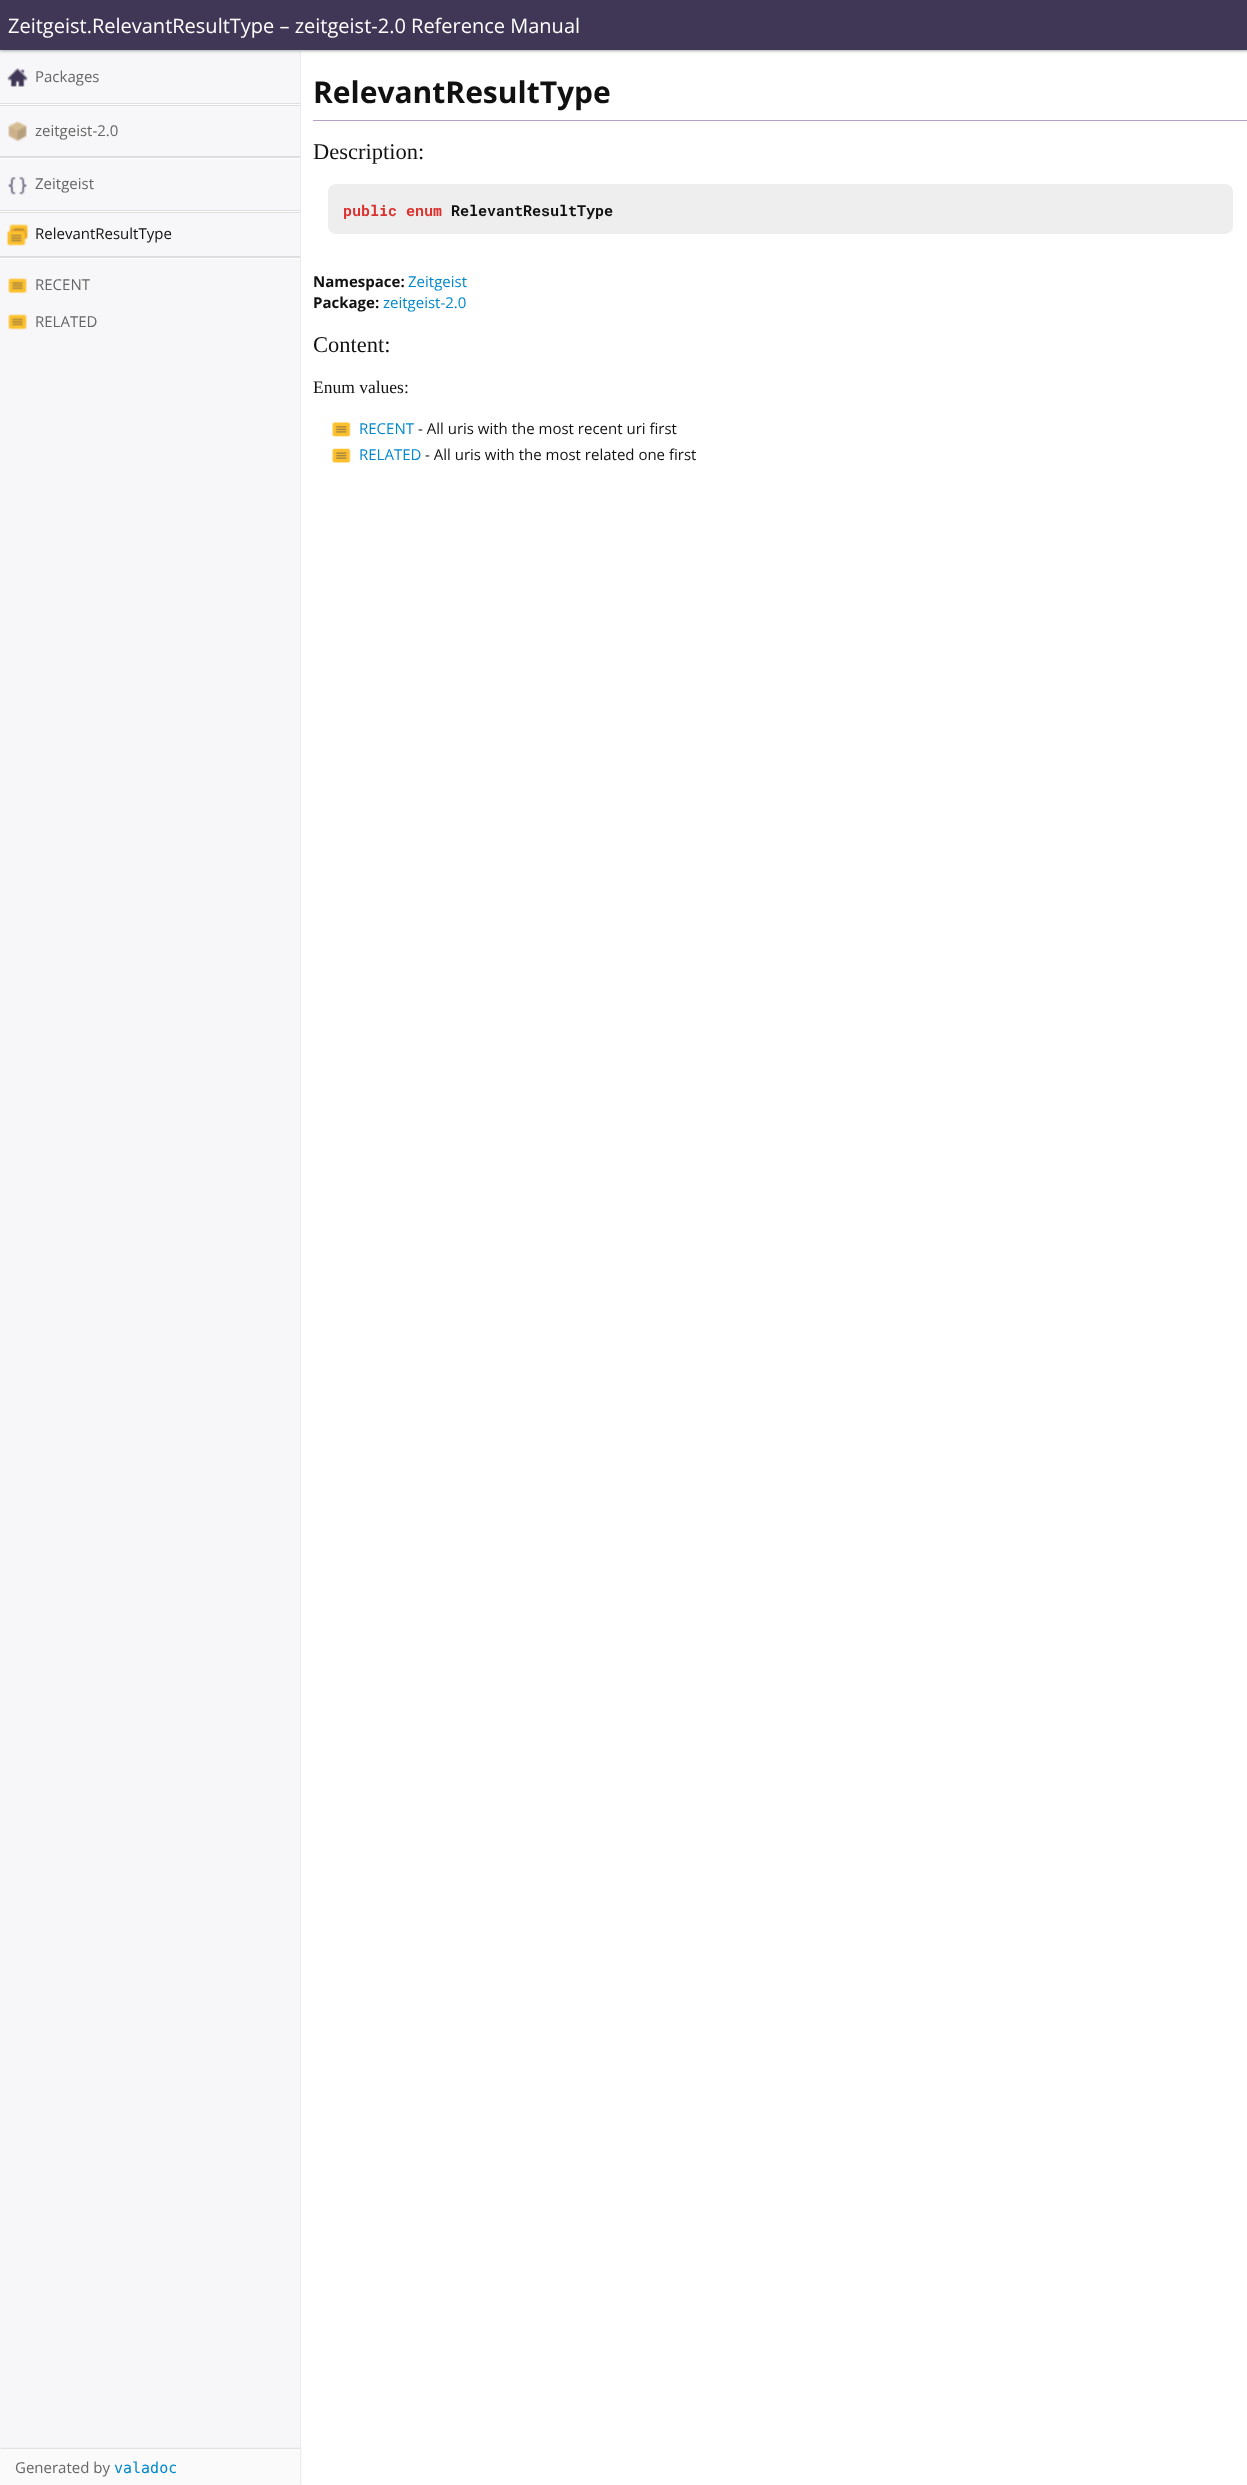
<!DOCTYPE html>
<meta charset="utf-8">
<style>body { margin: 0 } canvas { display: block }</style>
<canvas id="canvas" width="1247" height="2485"></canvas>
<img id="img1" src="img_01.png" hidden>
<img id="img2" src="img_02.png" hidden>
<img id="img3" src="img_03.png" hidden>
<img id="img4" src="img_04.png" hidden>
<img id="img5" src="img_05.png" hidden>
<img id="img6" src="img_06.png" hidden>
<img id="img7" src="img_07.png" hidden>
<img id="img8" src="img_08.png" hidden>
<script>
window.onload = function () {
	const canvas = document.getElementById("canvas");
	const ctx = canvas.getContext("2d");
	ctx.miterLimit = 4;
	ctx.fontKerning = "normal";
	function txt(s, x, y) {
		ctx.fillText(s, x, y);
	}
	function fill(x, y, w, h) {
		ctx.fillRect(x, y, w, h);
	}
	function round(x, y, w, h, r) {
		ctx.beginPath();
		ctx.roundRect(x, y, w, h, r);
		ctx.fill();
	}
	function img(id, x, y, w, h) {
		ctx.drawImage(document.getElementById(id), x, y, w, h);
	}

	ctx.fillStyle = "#FFFFFF";
	fill(0, 0, 1247, 2485);
	ctx.fillStyle = "#F7F6F8";
	fill(0, 51, 300, 2398);
	ctx.fillStyle = "#ECEAF0";
	fill(300, 51, 1, 2398);
	ctx.fillStyle = "rgba(0, 0, 0, 0.24)";
	ctx.filter = "blur(1px)";
	ctx.beginPath();
	ctx.rect(0, 1, 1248, 50);
	ctx.fill();
	ctx.filter = "none";
	ctx.fillStyle = "rgba(0, 0, 0, 0.12)";
	ctx.filter = "blur(2px)";
	ctx.beginPath();
	ctx.rect(0, 1, 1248, 50);
	ctx.fill();
	ctx.filter = "none";
	ctx.fillStyle = "#403757";
	fill(0, 0, 1247, 50);
	img("img1", 7, 68, 21, 19);
	ctx.fillStyle = "#DEDEDE";
	fill(0, 103, 300, 3);
	ctx.fillStyle = "#FFFFFF";
	fill(0, 104, 300, 1);
	img("img2", 8, 120, 19, 22);
	ctx.fillStyle = "#DEDEDE";
	fill(0, 156, 300, 2);
	ctx.fillStyle = "#FFFFFF";
	fill(0, 158, 300, 1);
	img("img3", 8, 176, 19, 19);
	ctx.fillStyle = "#DEDEDE";
	fill(0, 210, 300, 3);
	ctx.fillStyle = "#FFFFFF";
	fill(0, 211, 300, 1);
	img("img4", 7, 224, 21, 22);
	ctx.fillStyle = "#DEDEDE";
	fill(0, 256, 300, 2);
	ctx.fillStyle = "#FFFFFF";
	fill(0, 258, 300, 1);
	img("img5", 8, 278, 19, 16);
	img("img6", 8, 314, 19, 16);
	ctx.fillStyle = "#B4A0C1";
	fill(313, 120, 934, 1);
	ctx.fillStyle = "#EEEEEE";
	round(328, 184, 905, 50, 8);
	img("img7", 332, 422, 19, 15);
	img("img8", 332, 448, 19, 15);
	ctx.fillStyle = "rgba(0, 0, 0, 0.24)";
	ctx.filter = "blur(1px)";
	ctx.beginPath();
	ctx.rect(0, 2449, 300, 36);
	ctx.fill();
	ctx.filter = "none";
	ctx.fillStyle = "#FAFAFA";
	fill(0, 2449, 300, 36);
	ctx.font = "20px Open Sans";
	ctx.fillStyle = "#FFFFFF";
	txt("Zeitgeist.RelevantResultType – zeitgeist-2.0 Reference Manual", 8, 33);
	ctx.font = "15px Open Sans";
	ctx.fillStyle = "#666666";
	txt("Packages", 35, 82);
	txt("zeitgeist-2.0", 35, 136);
	txt("Zeitgeist", 35, 189);
	ctx.fillStyle = "#111111";
	txt("RelevantResultType", 35, 239);
	ctx.fillStyle = "#666666";
	txt("RECENT", 35, 290);
	txt("RELATED", 35, 327);
	ctx.font = "bold 30px Open Sans";
	ctx.fillStyle = "#111111";
	txt("RelevantResultType", 313, 103);
	ctx.font = "22.5px Liberation Serif";
	txt("Description:", 313, 159);
	ctx.font = "bold 15px Roboto Mono";
	ctx.fillStyle = "#DC322F";
	txt("public enum", 343, 216);
	ctx.fillStyle = "#111111";
	txt("RelevantResultType", 451, 216);
	ctx.font = "bold 15px Open Sans";
	txt("Namespace:", 313, 287);
	ctx.font = "15px Open Sans";
	ctx.fillStyle = "#0088CC";
	txt("Zeitgeist", 408, 287);
	ctx.font = "bold 15px Open Sans";
	ctx.fillStyle = "#111111";
	txt("Package:", 313, 308);
	ctx.font = "15px Open Sans";
	ctx.fillStyle = "#0088CC";
	txt("zeitgeist-2.0", 383, 308);
	ctx.font = "22.5px Liberation Serif";
	ctx.fillStyle = "#111111";
	txt("Content:", 313, 352);
	ctx.font = "17.5px Liberation Serif";
	txt("Enum values:", 313, 393);
	ctx.font = "15px Open Sans";
	ctx.fillStyle = "#0088CC";
	txt("RECENT", 359, 434);
	ctx.fillStyle = "#111111";
	txt("- All uris with the most recent uri first", 418, 434);
	ctx.fillStyle = "#0088CC";
	txt("RELATED", 359, 460);
	ctx.fillStyle = "#111111";
	txt("- All uris with the most related one first", 425, 460);
	ctx.fillStyle = "#666666";
	txt("Generated by", 15, 2473);
	ctx.font = "15px DejaVu Sans Mono";
	ctx.fillStyle = "#0088CC";
	txt("valadoc", 114, 2473);
};
</script>
